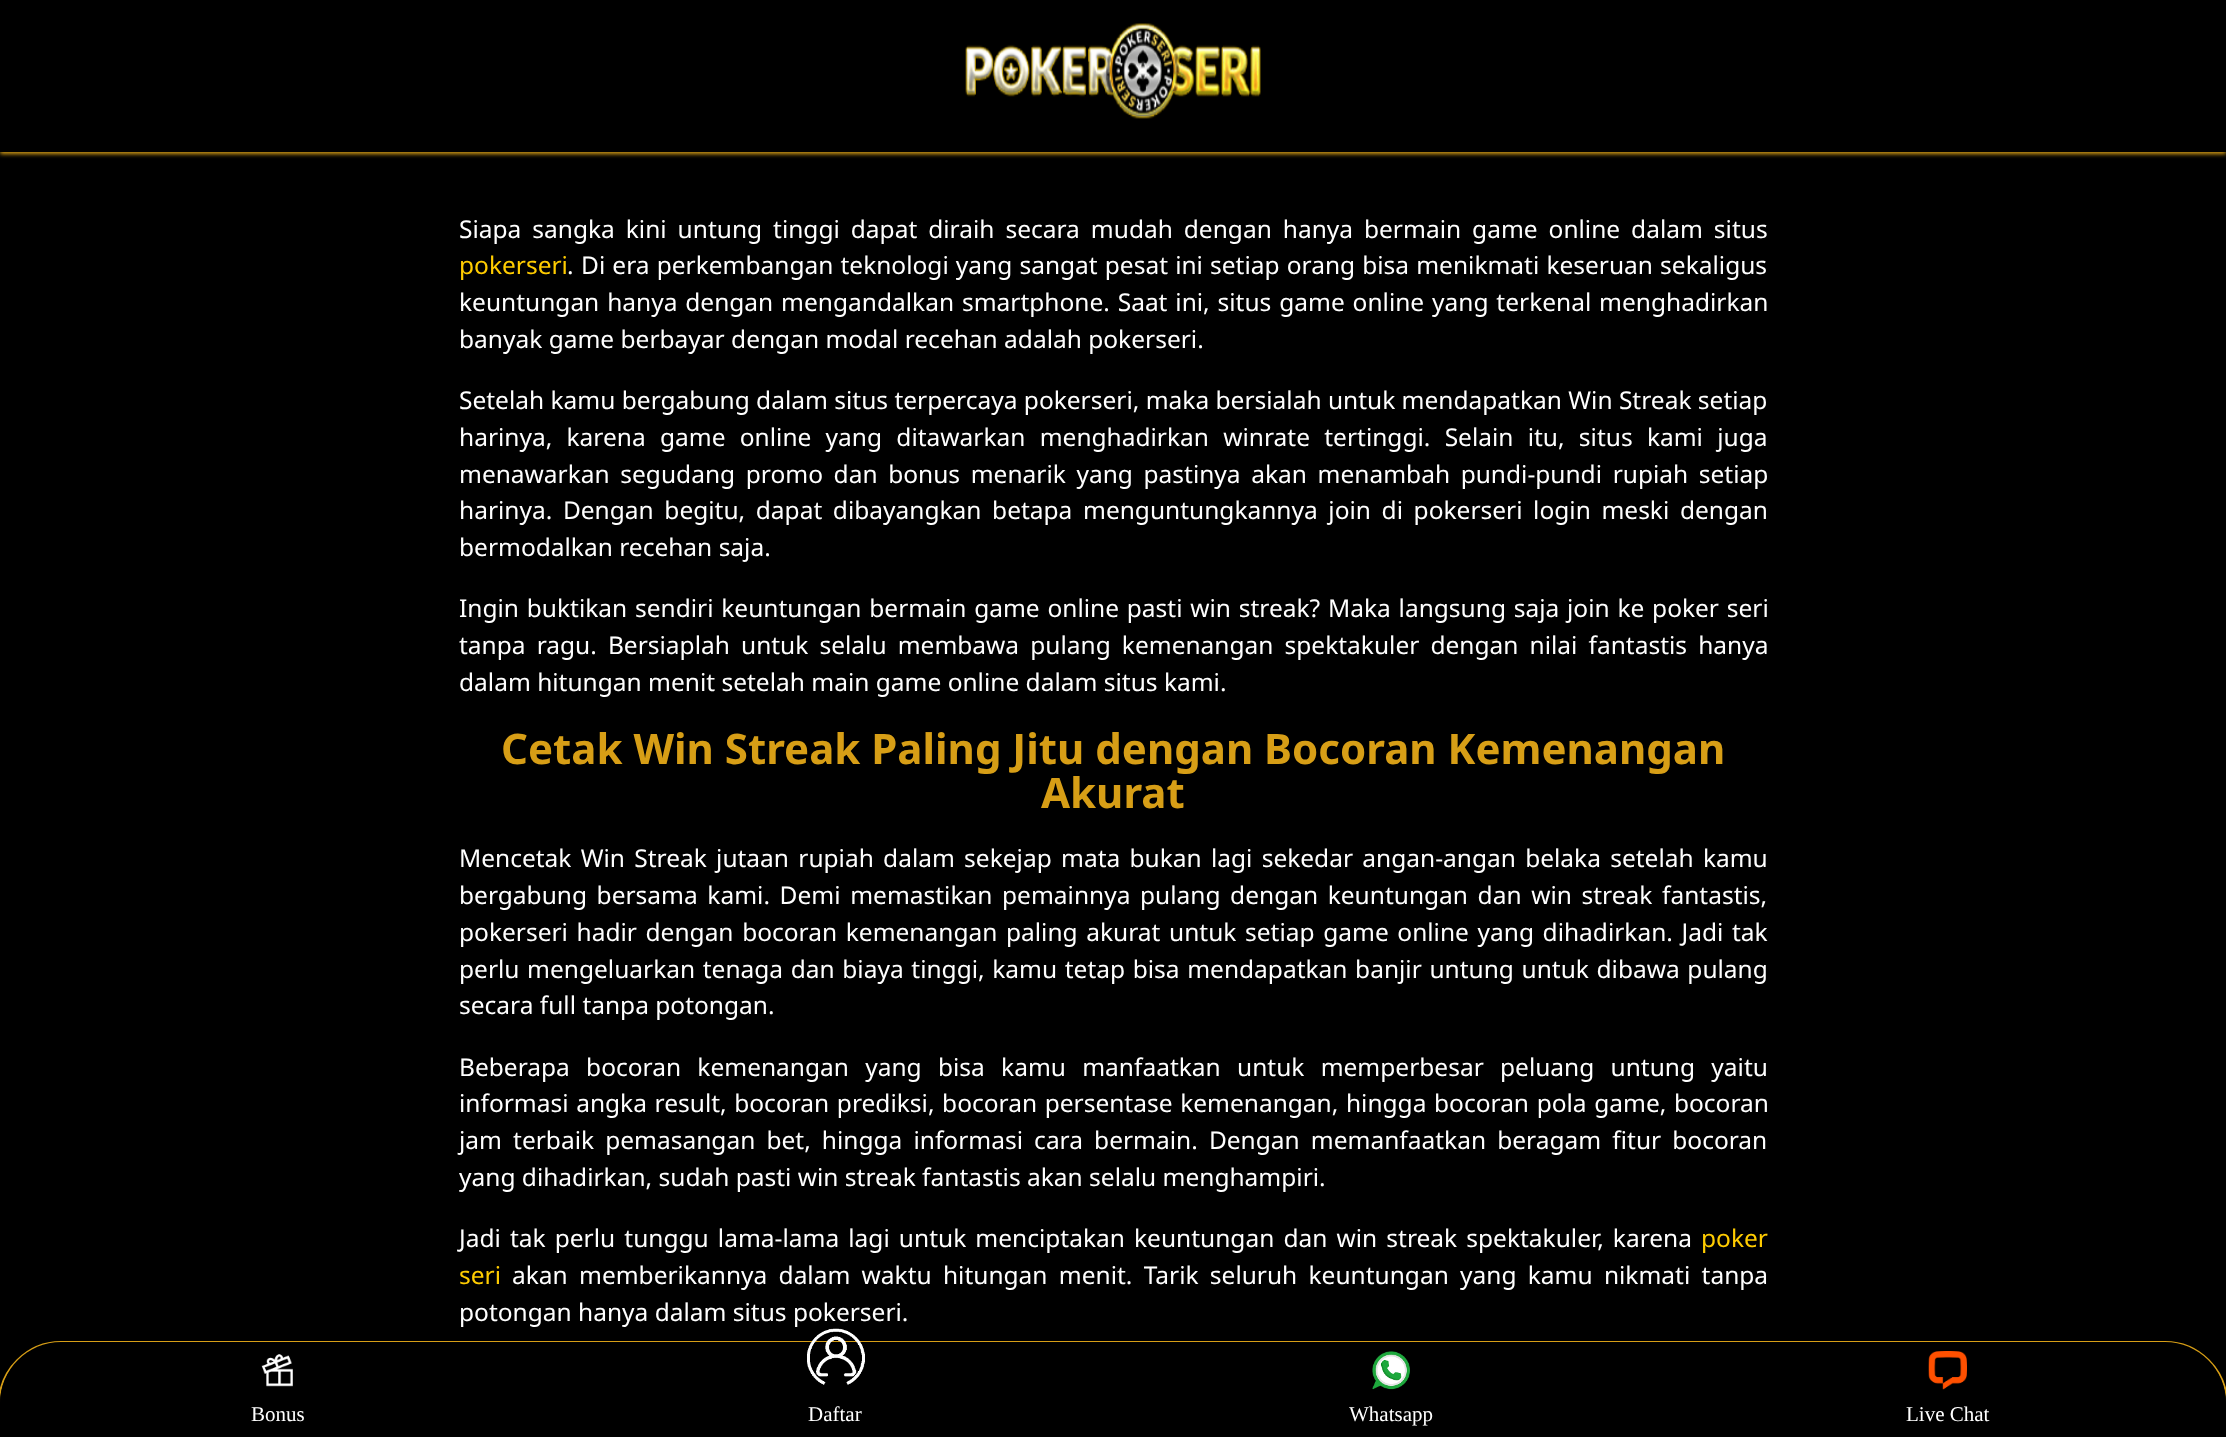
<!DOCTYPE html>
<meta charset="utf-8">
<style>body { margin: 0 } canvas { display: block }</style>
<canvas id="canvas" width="2226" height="1437"></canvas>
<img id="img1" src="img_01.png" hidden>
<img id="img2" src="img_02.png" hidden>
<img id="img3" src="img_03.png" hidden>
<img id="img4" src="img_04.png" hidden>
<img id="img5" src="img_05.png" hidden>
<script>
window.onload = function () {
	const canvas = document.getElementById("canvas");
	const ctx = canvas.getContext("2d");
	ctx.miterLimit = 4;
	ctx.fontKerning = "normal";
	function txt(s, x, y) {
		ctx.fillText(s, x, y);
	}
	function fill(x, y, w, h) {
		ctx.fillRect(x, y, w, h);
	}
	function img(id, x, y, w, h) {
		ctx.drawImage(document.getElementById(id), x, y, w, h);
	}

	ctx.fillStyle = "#000000";
	fill(0, 0, 2226, 1437);
	ctx.fillStyle = "#D79E16";
	ctx.filter = "blur(2px)";
	ctx.beginPath();
	ctx.rect(0, 2, 2226, 152);
	ctx.fill();
	ctx.filter = "none";
	ctx.fillStyle = "#000000";
	fill(0, 0, 2226, 152);
	img("img1", 965, 23, 296, 96);
	ctx.beginPath();
	ctx.moveTo(61, 1342);
	ctx.lineTo(2165, 1342);
	ctx.bezierCurveTo(2199, 1342, 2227, 1370, 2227, 1404);
	ctx.lineTo(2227, 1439);
	ctx.lineTo(-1, 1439);
	ctx.lineTo(-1, 1404);
	ctx.bezierCurveTo(-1, 1370, 27, 1342, 61, 1342);
	ctx.closePath();
	ctx.strokeStyle = "#D79E16";
	ctx.lineWidth = 2;
	ctx.stroke();
	ctx.beginPath();
	ctx.moveTo(61, 1342);
	ctx.lineTo(2165, 1342);
	ctx.bezierCurveTo(2198.5, 1342, 2226, 1369.5, 2226, 1403);
	ctx.lineTo(2226, 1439);
	ctx.lineTo(0, 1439);
	ctx.lineTo(0, 1403);
	ctx.bezierCurveTo(0, 1369.5, 27.5, 1342, 61, 1342);
	ctx.closePath();
	ctx.fill();
	img("img2", 261, 1354, 32, 33);
	img("img3", 807, 1328, 58, 57);
	img("img4", 1372, 1351, 38, 39);
	img("img5", 1928, 1351, 39, 39);
	ctx.wordSpacing = "4.6px";
	ctx.font = "24.5px Noto Sans";
	ctx.fillStyle = "#FFFFFF";
	txt("Siapa sangka kini untung tinggi dapat diraih secara mudah dengan hanya bermain game online dalam situs", 459, 238);
	ctx.wordSpacing = "0px";
	ctx.fillStyle = "#FFCC00";
	txt("pokerseri", 459, 274);
	ctx.fillStyle = "#FFFFFF";
	txt(".", 567, 274);
	ctx.wordSpacing = "0.75px";
	txt("Di era perkembangan teknologi yang sangat pesat ini setiap orang bisa menikmati keseruan sekaligus", 581, 274);
	ctx.wordSpacing = "1.5px";
	txt("keuntungan hanya dengan mengandalkan smartphone. Saat ini, situs game online yang terkenal menghadirkan", 459, 311);
	ctx.wordSpacing = "0px";
	txt("banyak game berbayar dengan modal recehan adalah pokerseri.", 459, 348);
	txt("Setelah kamu bergabung dalam situs terpercaya pokerseri, maka bersialah untuk mendapatkan Win Streak setiap", 459, 409);
	ctx.wordSpacing = "7.9px";
	txt("harinya, karena game online yang ditawarkan menghadirkan winrate tertinggi. Selain itu, situs kami juga", 459, 446);
	ctx.wordSpacing = "4.25px";
	txt("menawarkan segudang promo dan bonus menarik yang pastinya akan menambah pundi-pundi rupiah setiap", 459, 483);
	txt("harinya. Dengan begitu, dapat dibayangkan betapa menguntungkannya join di pokerseri login meski dengan", 459, 519);
	ctx.wordSpacing = "0px";
	txt("bermodalkan recehan saja.", 459, 556);
	ctx.wordSpacing = "1.4px";
	txt("Ingin buktikan sendiri keuntungan bermain game online pasti win streak? Maka langsung saja join ke poker seri", 459, 617);
	ctx.wordSpacing = "4.75px";
	txt("tanpa ragu. Bersiaplah untuk selalu membawa pulang kemenangan spektakuler dengan nilai fantastis hanya", 459, 654);
	ctx.wordSpacing = "0px";
	txt("dalam hitungan menit setelah main game online dalam situs kami.", 459, 691);
	ctx.font = "bold 42px Noto Sans";
	ctx.fillStyle = "#D79E16";
	txt("Cetak Win Streak Paling Jitu dengan Bocoran Kemenangan", 501, 764);
	txt("Akurat", 1041, 808);
	ctx.wordSpacing = "2.9px";
	ctx.font = "24.5px Noto Sans";
	ctx.fillStyle = "#FFFFFF";
	txt("Mencetak Win Streak jutaan rupiah dalam sekejap mata bukan lagi sekedar angan-angan belaka setelah kamu", 459, 867);
	ctx.wordSpacing = "3.25px";
	txt("bergabung bersama kami. Demi memastikan pemainnya pulang dengan keuntungan dan win streak fantastis,", 459, 904);
	ctx.wordSpacing = "2.25px";
	txt("pokerseri hadir dengan bocoran kemenangan paling akurat untuk setiap game online yang dihadirkan. Jadi tak", 459, 941);
	ctx.wordSpacing = "1.25px";
	txt("perlu mengeluarkan tenaga dan biaya tinggi, kamu tetap bisa mendapatkan banjir untung untuk dibawa pulang", 459, 978);
	ctx.wordSpacing = "0px";
	txt("secara full tanpa potongan.", 459, 1014);
	ctx.wordSpacing = "9.9px";
	txt("Beberapa bocoran kemenangan yang bisa kamu manfaatkan untuk memperbesar peluang untung yaitu", 459, 1076);
	ctx.wordSpacing = "1.25px";
	txt("informasi angka result, bocoran prediksi, bocoran persentase kemenangan, hingga bocoran pola game, bocoran", 459, 1112);
	ctx.wordSpacing = "4.75px";
	txt("jam terbaik pemasangan bet, hingga informasi cara bermain. Dengan memanfaatkan beragam fitur bocoran", 459, 1149);
	ctx.wordSpacing = "0px";
	txt("yang dihadirkan, sudah pasti win streak fantastis akan selalu menghampiri.", 459, 1186);
	ctx.wordSpacing = "2.75px";
	txt("Jadi tak perlu tunggu lama-lama lagi untuk menciptakan keuntungan dan win streak spektakuler, karena", 459, 1247);
	ctx.wordSpacing = "0px";
	ctx.fillStyle = "#FFCC00";
	txt("poker", 1701, 1247);
	txt("seri", 459, 1284);
	ctx.wordSpacing = "4.9px";
	ctx.fillStyle = "#FFFFFF";
	txt("akan memberikannya dalam waktu hitungan menit. Tarik seluruh keuntungan yang kamu nikmati tanpa", 512, 1284);
	ctx.wordSpacing = "0px";
	txt("potongan hanya dalam situs pokerseri.", 459, 1321);
	ctx.font = "21px Liberation Serif";
	txt("Bonus", 251, 1421);
	txt("Daftar", 808, 1421);
	txt("Whatsapp", 1349, 1421);
	txt("Live Chat", 1906, 1421);
};
</script>
